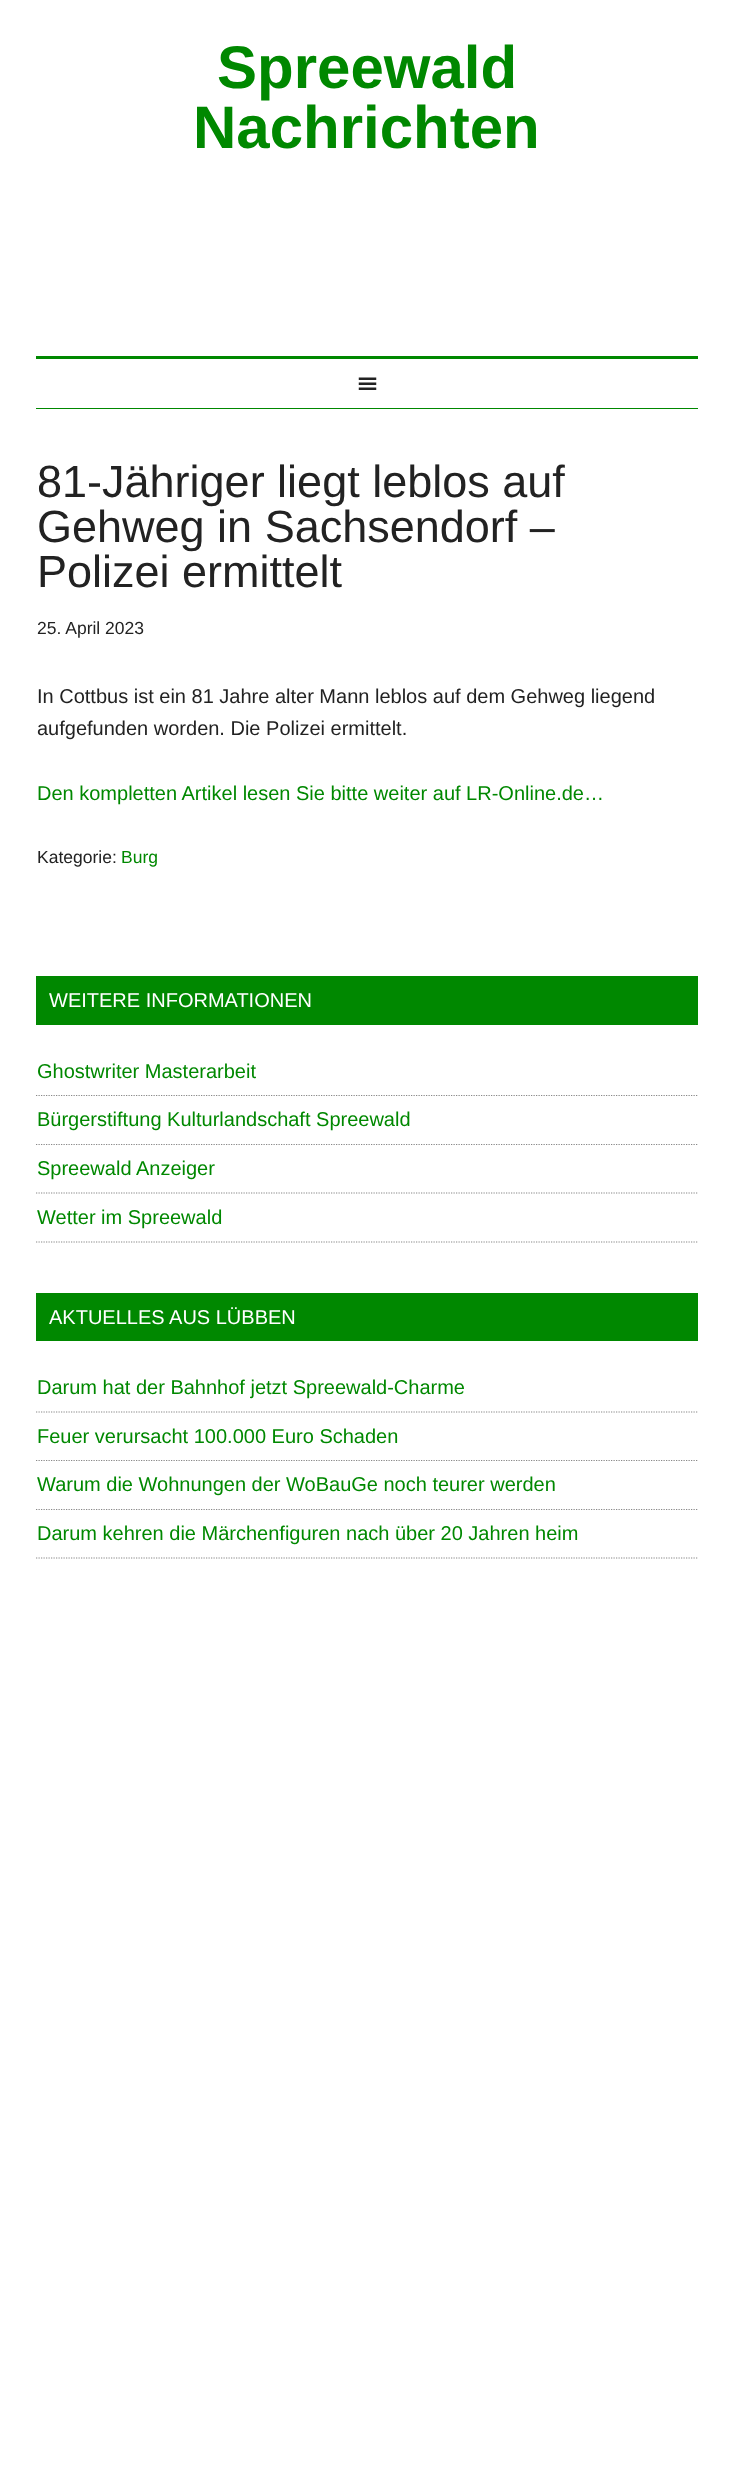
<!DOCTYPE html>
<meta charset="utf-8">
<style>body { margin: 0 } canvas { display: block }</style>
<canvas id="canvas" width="733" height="2488"></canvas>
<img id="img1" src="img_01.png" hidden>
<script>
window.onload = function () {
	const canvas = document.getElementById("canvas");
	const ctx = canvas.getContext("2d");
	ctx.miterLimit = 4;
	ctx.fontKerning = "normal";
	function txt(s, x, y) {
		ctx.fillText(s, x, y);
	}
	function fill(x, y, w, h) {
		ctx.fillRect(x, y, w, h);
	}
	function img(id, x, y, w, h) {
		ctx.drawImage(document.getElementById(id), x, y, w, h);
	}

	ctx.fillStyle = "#FFFFFF";
	fill(0, 0, 733, 2488);
	ctx.fillStyle = "#008800";
	fill(36, 356, 662, 3);
	fill(36, 408, 662, 1);
	img("img1", 358, 377, 19, 13);
	fill(36, 976, 662, 49);
	ctx.beginPath();
	ctx.moveTo(36, 1095.5);
	ctx.lineTo(697.5, 1095.5);
	ctx.strokeStyle = "#888888";
	ctx.lineWidth = 1.2;
	ctx.setLineDash([1.25, 1.25]);
	ctx.stroke();
	ctx.beginPath();
	ctx.moveTo(36, 1144.5);
	ctx.lineTo(697.5, 1144.5);
	ctx.stroke();
	ctx.beginPath();
	ctx.moveTo(36, 1193);
	ctx.lineTo(697.5, 1193);
	ctx.stroke();
	ctx.beginPath();
	ctx.moveTo(36, 1242);
	ctx.lineTo(697.5, 1242);
	ctx.stroke();
	fill(36, 1293, 662, 48);
	ctx.beginPath();
	ctx.moveTo(36, 1412);
	ctx.lineTo(697.5, 1412);
	ctx.stroke();
	ctx.beginPath();
	ctx.moveTo(36, 1460.5);
	ctx.lineTo(697.5, 1460.5);
	ctx.stroke();
	ctx.beginPath();
	ctx.moveTo(36, 1509.5);
	ctx.lineTo(697.5, 1509.5);
	ctx.stroke();
	ctx.beginPath();
	ctx.moveTo(36, 1558);
	ctx.lineTo(697.5, 1558);
	ctx.stroke();
	ctx.font = "bold 60px Liberation Sans";
	txt("Spreewald", 217, 88);
	txt("Nachrichten", 193, 148);
	ctx.font = "45px Liberation Sans";
	ctx.fillStyle = "#222222";
	txt("81-Jähriger liegt leblos auf", 37, 497);
	txt("Gehweg in Sachsendorf –", 37, 542);
	txt("Polizei ermittelt", 37, 587);
	ctx.font = "17.5px Liberation Sans";
	txt("25. April 2023", 37, 634);
	ctx.font = "20px Liberation Sans";
	txt("In Cottbus ist ein 81 Jahre alter Mann leblos auf dem Gehweg liegend", 37, 703);
	txt("aufgefunden worden. Die Polizei ermittelt.", 37, 735);
	ctx.fillStyle = "#008800";
	txt("Den kompletten Artikel lesen Sie bitte weiter auf LR-Online.de…", 37, 800);
	ctx.font = "17.5px Liberation Sans";
	ctx.fillStyle = "#222222";
	txt("Kategorie:", 37, 863);
	ctx.fillStyle = "#008800";
	txt("Burg", 121, 863);
	ctx.font = "20px Liberation Sans";
	ctx.fillStyle = "#FFFFFF";
	txt("WEITERE INFORMATIONEN", 49, 1007);
	ctx.fillStyle = "#008800";
	txt("Ghostwriter Masterarbeit", 37, 1078);
	txt("Bürgerstiftung Kulturlandschaft Spreewald", 37, 1126);
	txt("Spreewald Anzeiger", 37, 1175);
	txt("Wetter im Spreewald", 37, 1224);
	ctx.fillStyle = "#FFFFFF";
	txt("AKTUELLES AUS LÜBBEN", 49, 1324);
	ctx.fillStyle = "#008800";
	txt("Darum hat der Bahnhof jetzt Spreewald-Charme", 37, 1394);
	txt("Feuer verursacht 100.000 Euro Schaden", 37, 1443);
	txt("Warum die Wohnungen der WoBauGe noch teurer werden", 37, 1491);
	txt("Darum kehren die Märchenfiguren nach über 20 Jahren heim", 37, 1540);
};
</script>
